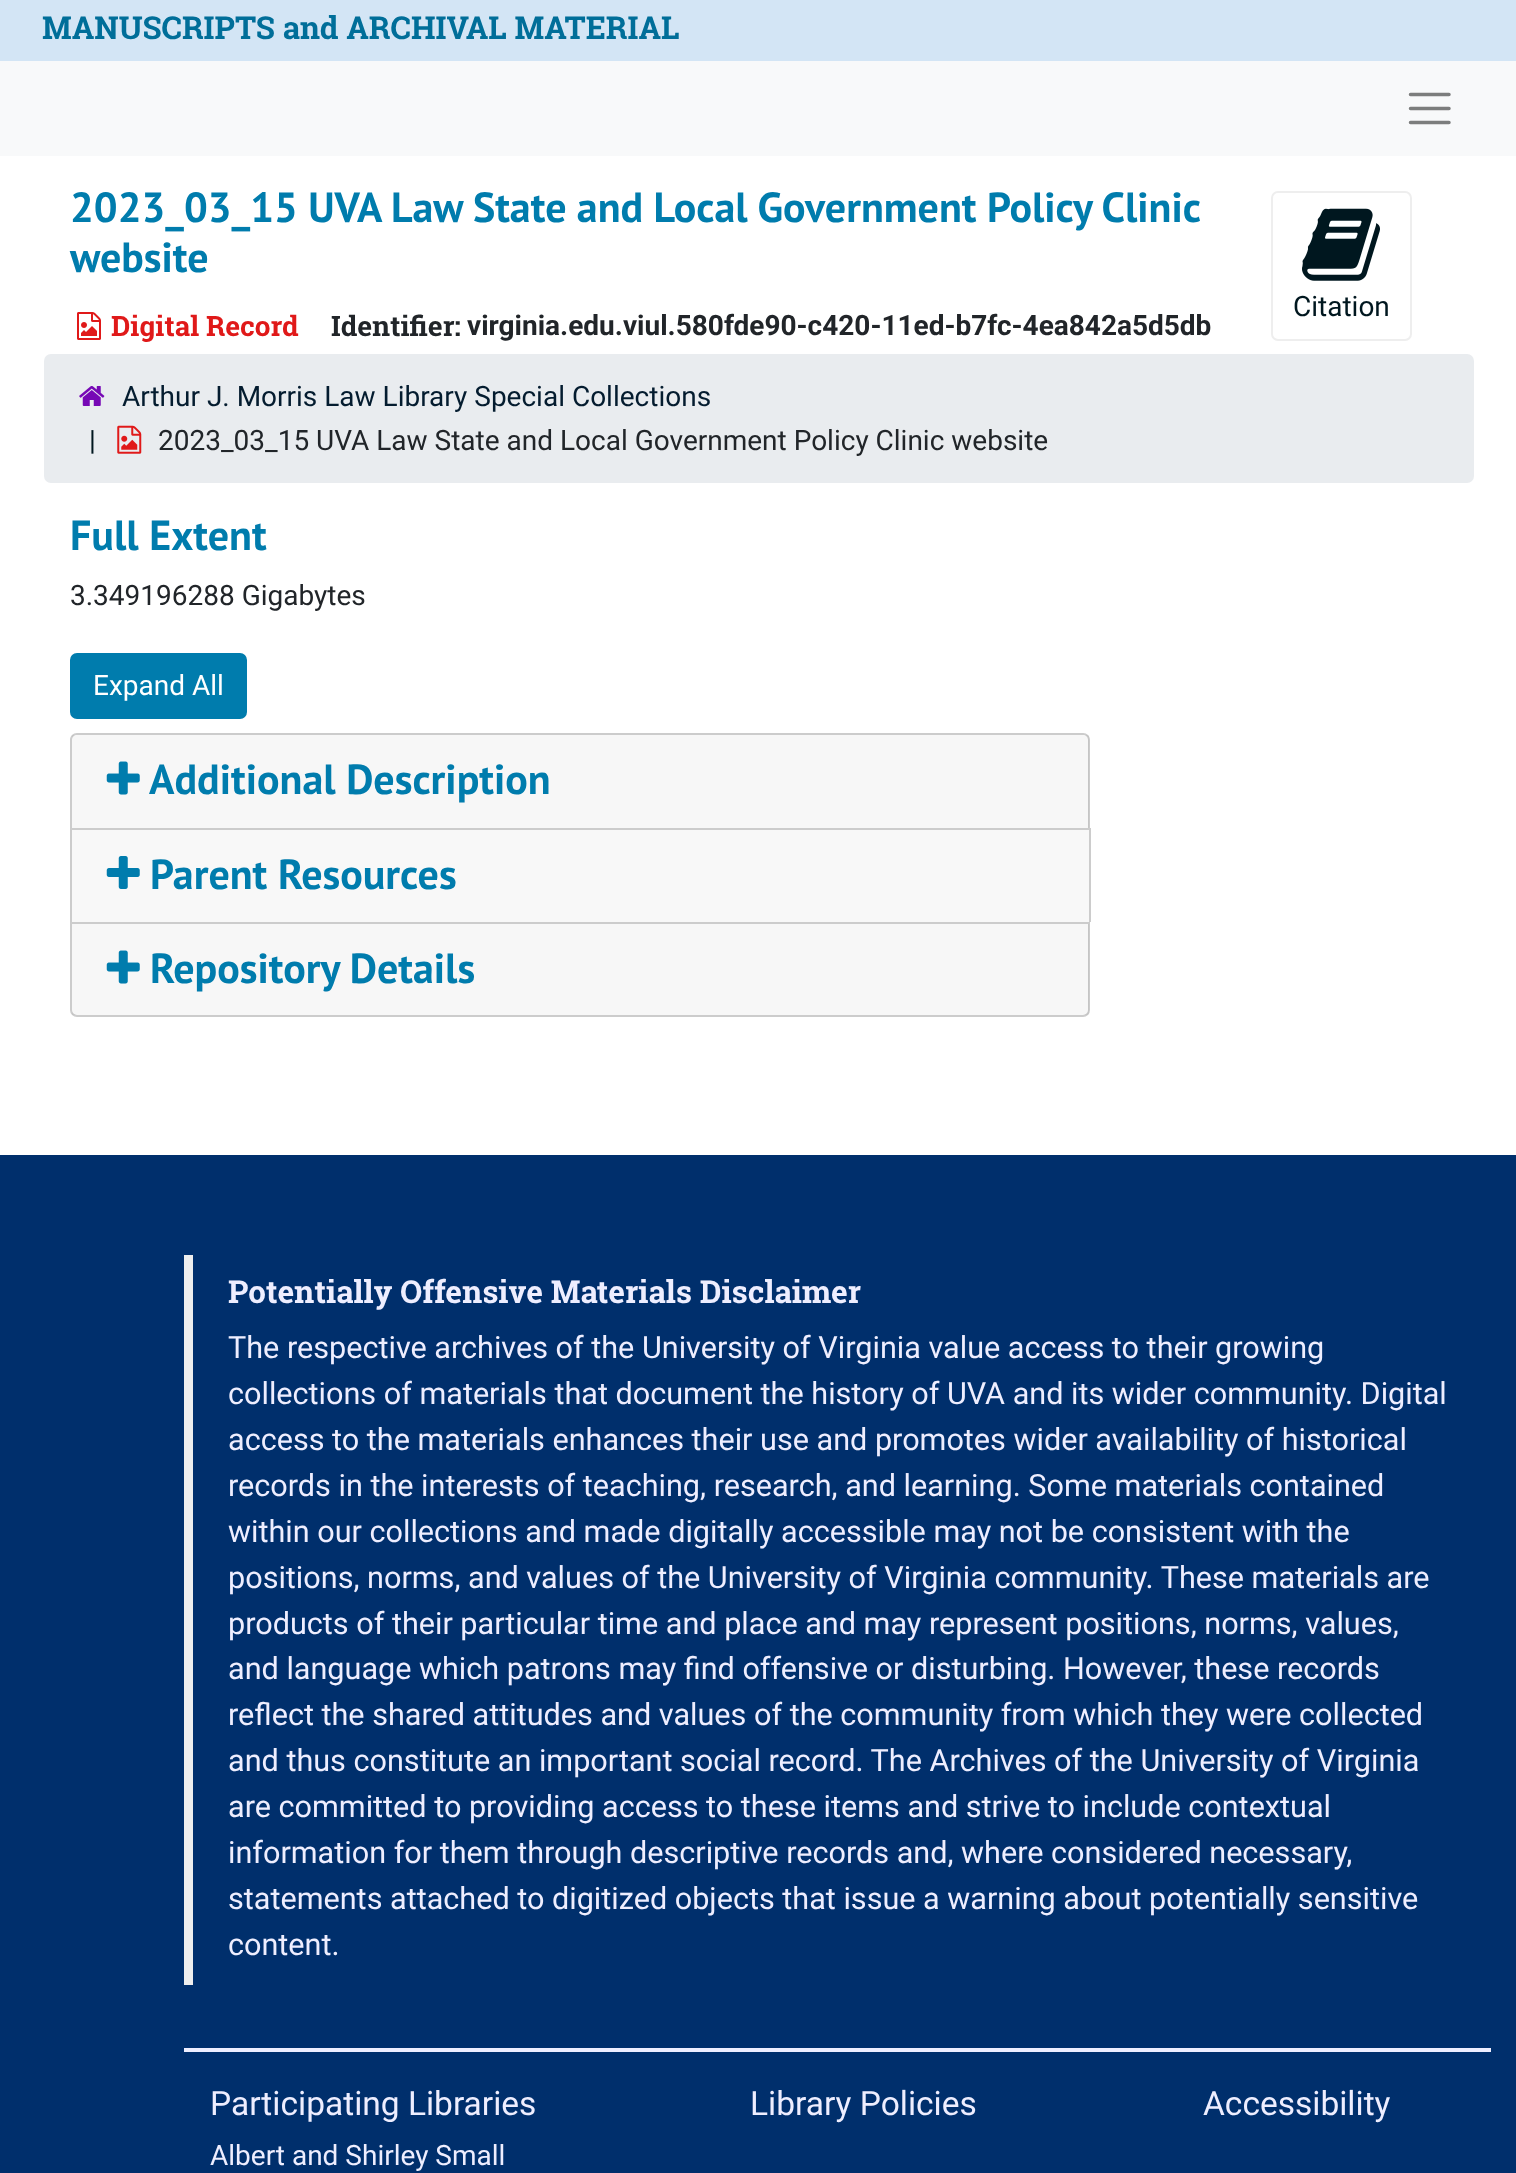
<!DOCTYPE html>
<meta charset="utf-8">
<style>body { margin: 0 } canvas { display: block }</style>
<canvas id="canvas" width="1516" height="2173"></canvas>
<img id="img1" src="img_01.png" hidden>
<img id="img2" src="img_02.png" hidden>
<img id="img3" src="img_03.png" hidden>
<img id="img4" src="img_04.png" hidden>
<img id="img5" src="img_05.png" hidden>
<img id="img6" src="img_06.png" hidden>
<script>
window.onload = function () {
	const canvas = document.getElementById("canvas");
	const ctx = canvas.getContext("2d");
	ctx.miterLimit = 4;
	ctx.fontKerning = "normal";
	function txt(s, x, y) {
		ctx.fillText(s, x, y);
	}
	function fill(x, y, w, h) {
		ctx.fillRect(x, y, w, h);
	}
	function round(x, y, w, h, r) {
		ctx.beginPath();
		ctx.roundRect(x, y, w, h, r);
		ctx.fill();
	}
	function img(id, x, y, w, h) {
		ctx.drawImage(document.getElementById(id), x, y, w, h);
	}

	ctx.fillStyle = "#FFFFFF";
	fill(0, 0, 1516, 2173);
	ctx.fillStyle = "#D3E5F5";
	fill(0, 0, 1516, 61);
	ctx.fillStyle = "#F8F9FA";
	fill(0, 61, 1516, 95);
	ctx.beginPath();
	ctx.moveTo(1410.5, 94.5);
	ctx.lineTo(1449, 94.5);
	ctx.moveTo(1410.5, 108.5);
	ctx.lineTo(1449, 108.5);
	ctx.moveTo(1410.5, 122.5);
	ctx.lineTo(1449, 122.5);
	ctx.strokeStyle = "#7C7D7D";
	ctx.lineWidth = 3.5;
	ctx.lineCap = "round";
	ctx.stroke();
	img("img1", 77, 312, 24, 28);
	ctx.beginPath();
	ctx.roundRect(1272, 192, 139, 148, 6);
	ctx.strokeStyle = "#EEEEEE";
	ctx.lineWidth = 2;
	ctx.stroke();
	img("img2", 1302, 208, 78, 73);
	ctx.fillStyle = "#E9ECEF";
	round(44, 354, 1430, 129, 7);
	img("img3", 79, 386, 26, 20);
	img("img4", 117, 425, 25, 29);
	ctx.fillStyle = "#007CAD";
	ctx.beginPath();
	ctx.roundRect(71, 654, 175, 64, 6);
	ctx.fill();
	ctx.strokeStyle = "#007CAD";
	ctx.stroke();
	ctx.fillStyle = "#CCCCCC";
	ctx.beginPath();
	ctx.moveTo(77, 733);
	ctx.lineTo(1083, 733);
	ctx.bezierCurveTo(1087, 733, 1090, 736, 1090, 740);
	ctx.lineTo(1090, 828);
	ctx.lineTo(70, 828);
	ctx.lineTo(70, 740);
	ctx.bezierCurveTo(70, 736, 73, 733, 77, 733);
	ctx.closePath();
	ctx.moveTo(77, 735);
	ctx.lineTo(1083, 735);
	ctx.bezierCurveTo(1086, 735, 1088, 737, 1088, 740);
	ctx.lineTo(1088, 828);
	ctx.lineTo(72, 828);
	ctx.lineTo(72, 740);
	ctx.bezierCurveTo(72, 737, 74, 735, 77, 735);
	ctx.closePath();
	ctx.fill("evenodd");
	ctx.fillStyle = "rgba(0, 0, 0, 0.03)";
	fill(72, 735, 1017, 93);
	img("img5", 106, 761, 34, 34);
	ctx.fillStyle = "#CCCCCC";
	fill(70, 828, 1020, 2);
	fill(1089, 828, 2, 94);
	fill(70, 828, 2, 94);
	ctx.fillStyle = "#F8F8F8";
	fill(72, 830, 1017, 92);
	img("img6", 106, 856, 34, 33);
	ctx.beginPath();
	ctx.roundRect(71, 923, 1018, 93, [0, 0, 6, 6]);
	ctx.strokeStyle = "#CCCCCC";
	ctx.stroke();
	ctx.fillStyle = "rgba(0, 0, 0, 0.03)";
	fill(72, 924, 1017, 91);
	img("img5", 106, 950, 34, 34);
	ctx.fillStyle = "#002F6C";
	fill(0, 1155, 1516, 1018);
	ctx.fillStyle = "#EEEEEE";
	fill(184, 1255, 9, 730);
	ctx.fillStyle = "#EEEEFF";
	fill(184, 2048, 1307, 4);
	ctx.font = "bold 31.5px Roboto Slab";
	ctx.fillStyle = "#006E99";
	txt("MANUSCRIPTS and ARCHIVAL MATERIAL", 42, 39);
	ctx.wordSpacing = "-0.25px";
	ctx.font = "bold 42px PT Sans";
	ctx.fillStyle = "#007CAD";
	txt("2023_03_15 UVA Law State and Local Government Policy Clinic", 70, 222);
	ctx.wordSpacing = "0px";
	txt("website", 70, 272);
	ctx.font = "bold 28px Roboto Slab";
	ctx.fillStyle = "#E01919";
	txt("Digital Record", 111, 336);
	ctx.fillStyle = "#212529";
	txt("Identifier:", 331, 336);
	ctx.font = "bold 28px Roboto";
	txt("virginia.edu.viul.580fde90-c420-11ed-b7fc-4ea842a5d5db", 467, 335);
	ctx.font = "28px Roboto";
	ctx.fillStyle = "#00171F";
	txt("Citation", 1293, 316);
	ctx.fillStyle = "#041C2F";
	txt("Arthur J. Morris Law Library Special Collections", 122, 406);
	ctx.fillStyle = "#00171F";
	txt("|", 89, 450);
	ctx.fillStyle = "#212529";
	txt("2023_03_15 UVA Law State and Local Government Policy Clinic website", 158, 450);
	ctx.font = "bold 42px PT Sans";
	ctx.fillStyle = "#007CAD";
	txt("Full Extent", 70, 550);
	ctx.font = "28px Roboto";
	ctx.fillStyle = "#212529";
	txt("3.349196288 Gigabytes", 70, 605);
	ctx.fillStyle = "#FFFFFF";
	txt("Expand All", 93, 695);
	ctx.font = "bold 42px PT Sans";
	ctx.fillStyle = "#007CAD";
	txt("Additional Description", 149, 794);
	txt("Parent Resources", 150, 889);
	txt("Repository Details", 150, 983);
	ctx.font = "bold 31.5px Roboto Slab";
	ctx.fillStyle = "#EEEEFF";
	txt("Potentially Offensive Materials Disclaimer", 228, 1303);
	ctx.font = "30.6px Roboto";
	txt("The respective archives of the University of Virginia value access to their growing", 228, 1358);
	txt("collections of materials that document the history of UVA and its wider community. Digital", 228, 1404);
	txt("access to the materials enhances their use and promotes wider availability of historical", 228, 1450);
	txt("records in the interests of teaching, research, and learning. Some materials contained", 228, 1496);
	txt("within our collections and made digitally accessible may not be consistent with the", 228, 1542);
	txt("positions, norms, and values of the University of Virginia community. These materials are", 228, 1588);
	txt("products of their particular time and place and may represent positions, norms, values,", 228, 1634);
	txt("and language which patrons may find offensive or disturbing. However, these records", 228, 1679);
	txt("reflect the shared attitudes and values of the community from which they were collected", 228, 1725);
	txt("and thus constitute an important social record. The Archives of the University of Virginia", 228, 1771);
	txt("are committed to providing access to these items and strive to include contextual", 228, 1817);
	txt("information for them through descriptive records and, where considered necessary,", 228, 1863);
	txt("statements attached to digitized objects that issue a warning about potentially sensitive", 228, 1909);
	txt("content.", 228, 1955);
	ctx.font = "33.5px Roboto";
	txt("Participating Libraries", 210, 2115);
	txt("Library Policies", 750, 2115);
	txt("Accessibility", 1203, 2115);
	ctx.font = "28px Roboto";
	txt("Albert and Shirley Small", 210, 2165);
};
</script>
